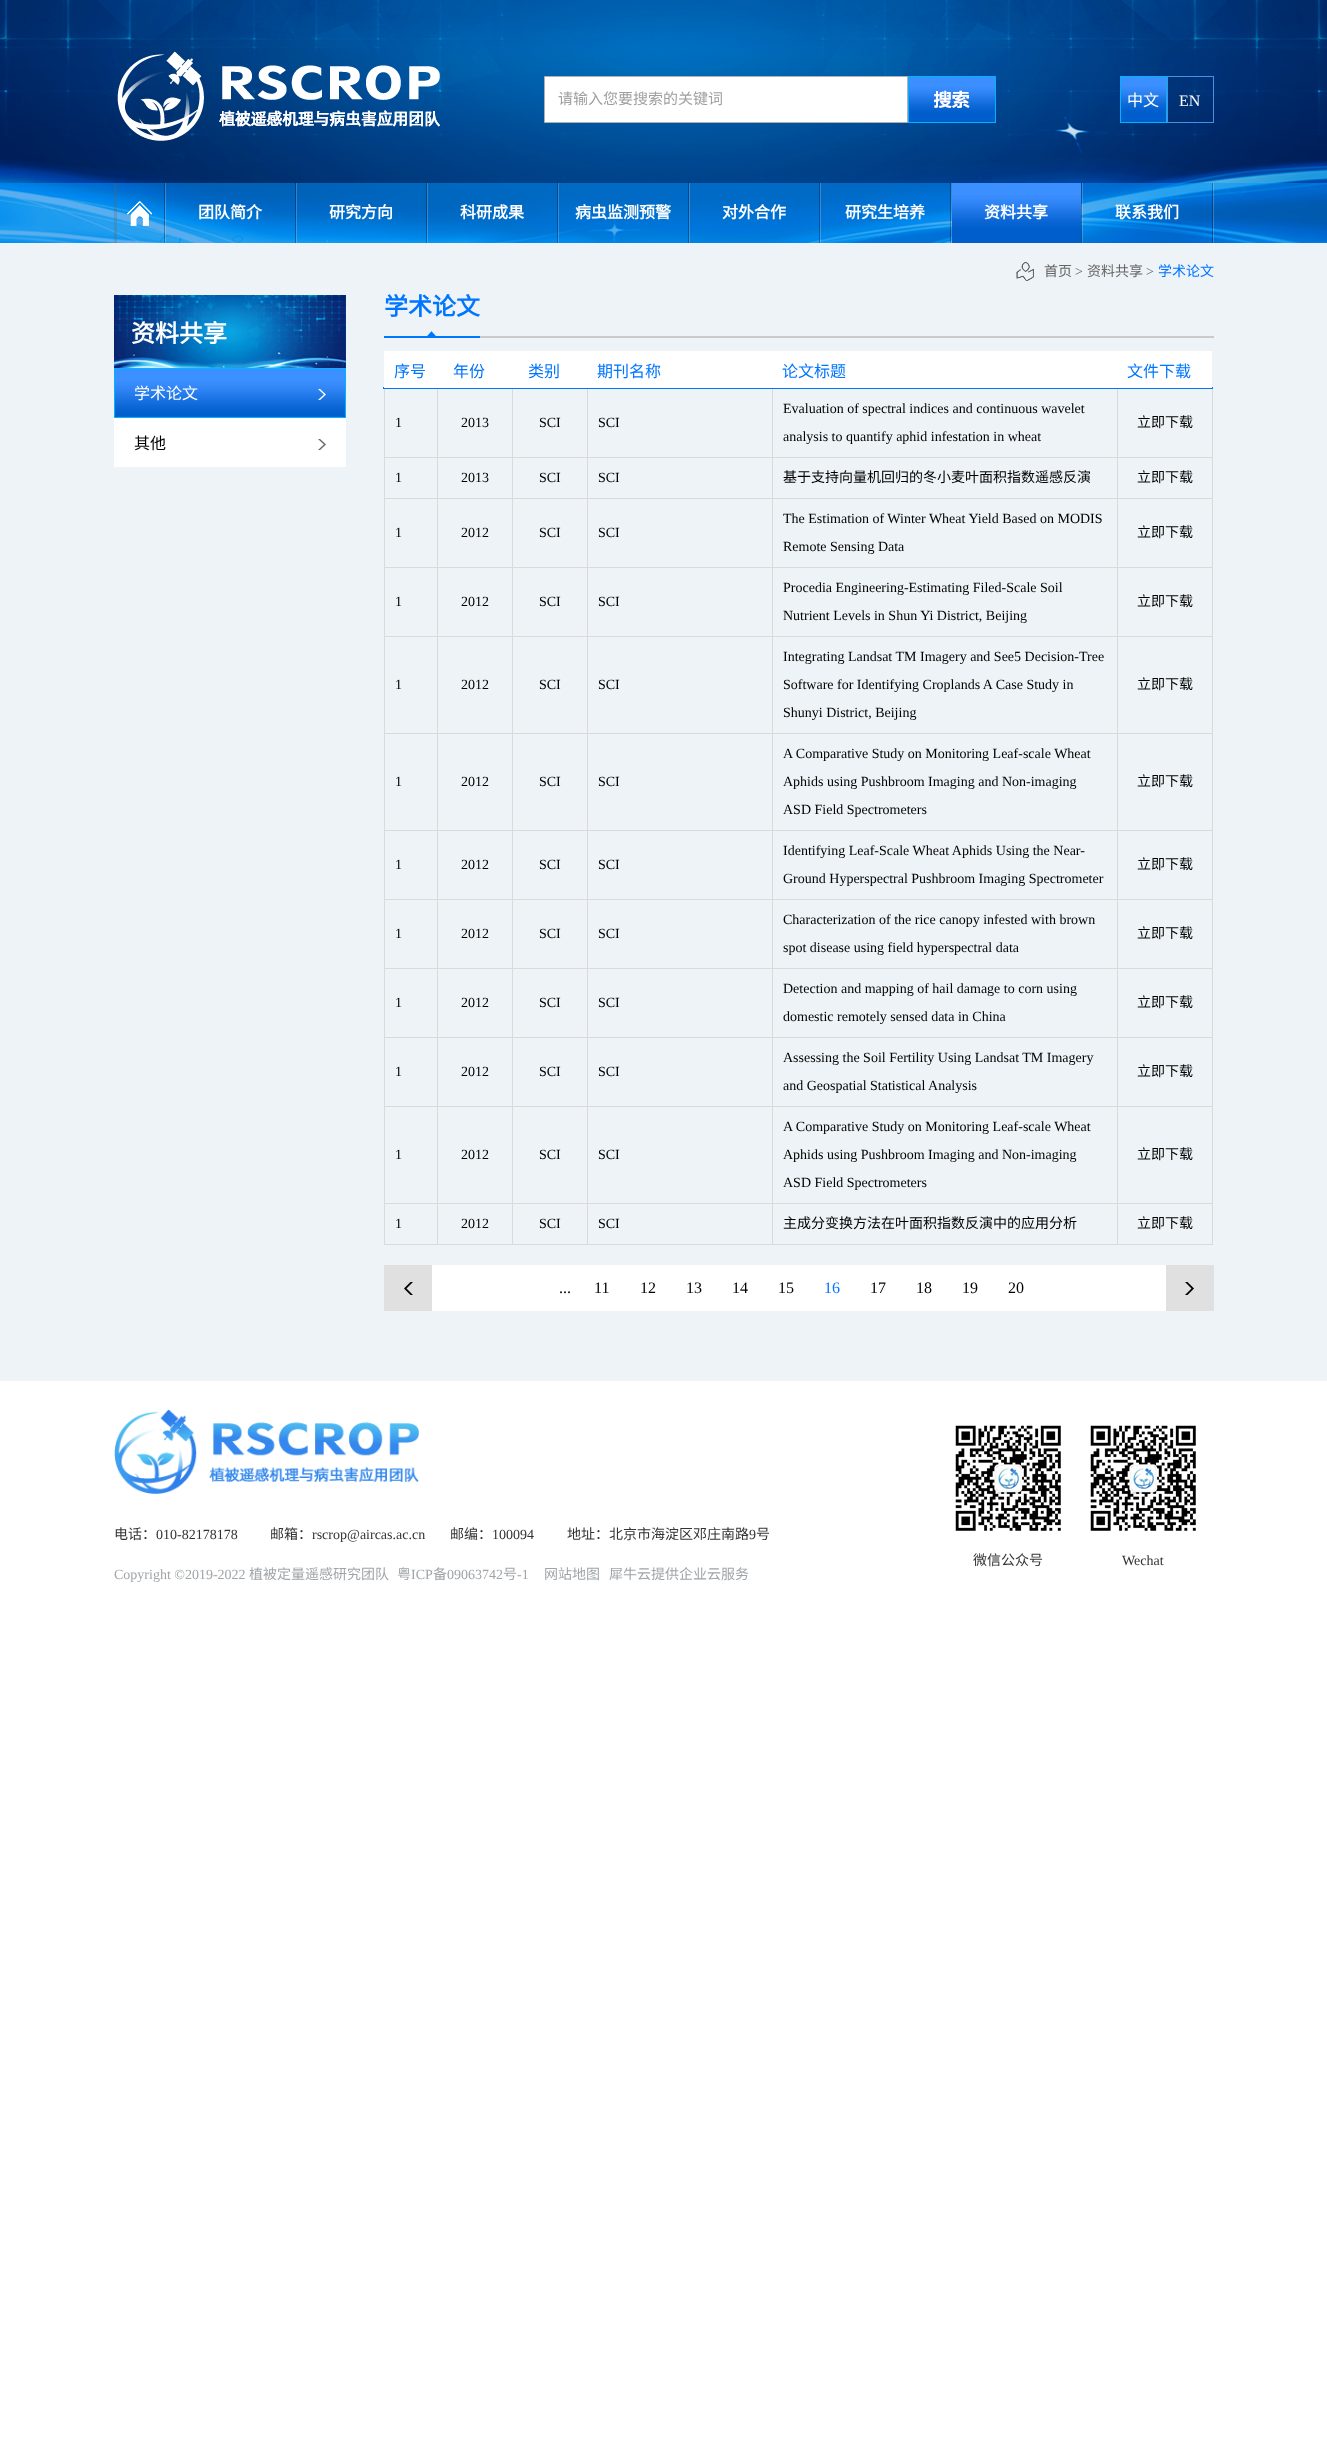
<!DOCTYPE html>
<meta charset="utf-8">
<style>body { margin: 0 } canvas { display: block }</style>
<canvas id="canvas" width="1327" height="2449"></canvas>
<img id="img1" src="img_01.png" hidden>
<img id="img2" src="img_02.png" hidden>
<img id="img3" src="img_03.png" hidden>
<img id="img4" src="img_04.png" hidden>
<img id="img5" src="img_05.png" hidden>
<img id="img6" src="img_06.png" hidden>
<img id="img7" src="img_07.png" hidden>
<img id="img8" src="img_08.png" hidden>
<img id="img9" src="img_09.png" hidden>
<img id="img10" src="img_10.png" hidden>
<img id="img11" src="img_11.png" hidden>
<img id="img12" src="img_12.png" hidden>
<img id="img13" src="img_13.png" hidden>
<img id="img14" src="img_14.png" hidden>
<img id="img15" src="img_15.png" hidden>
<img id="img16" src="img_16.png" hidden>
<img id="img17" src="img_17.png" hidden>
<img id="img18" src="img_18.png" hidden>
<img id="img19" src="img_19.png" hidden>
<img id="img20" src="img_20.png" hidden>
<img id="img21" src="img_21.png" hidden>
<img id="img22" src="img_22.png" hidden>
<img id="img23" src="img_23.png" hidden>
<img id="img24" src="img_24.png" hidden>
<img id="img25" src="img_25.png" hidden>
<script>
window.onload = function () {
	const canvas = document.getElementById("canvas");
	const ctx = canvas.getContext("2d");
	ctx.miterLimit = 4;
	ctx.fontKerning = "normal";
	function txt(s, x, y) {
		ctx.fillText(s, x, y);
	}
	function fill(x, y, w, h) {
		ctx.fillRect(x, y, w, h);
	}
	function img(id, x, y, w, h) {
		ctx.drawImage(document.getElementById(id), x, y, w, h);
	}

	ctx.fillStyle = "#FFFFFF";
	fill(0, 0, 1327, 2449);
	img("img1", 0, 0, 1327, 243);
	img("img2", 117, 51, 323, 90);
	ctx.beginPath();
	ctx.rect(544.5, 76.5, 363, 46);
	ctx.fill();
	ctx.strokeStyle = "#B0B0B0";
	ctx.stroke();
	img("img3", 908, 76, 88, 47);
	img("img4", 1121, 77, 45, 45);
	ctx.strokeStyle = "#00B3FF";
	ctx.strokeRect(1120.5, 76.5, 46, 46);
	ctx.strokeStyle = "#4A90E2";
	ctx.strokeRect(1167.5, 76.5, 46, 46);
	ctx.fillStyle = "rgba(0, 148, 255, 0.5)";
	fill(0, 183, 1327, 60);
	ctx.fillStyle = "rgba(100, 100, 100, 0.25)";
	fill(114, 183, 3, 60);
	img("img5", 164, 183, 2, 60);
	img("img6", 127, 201, 25, 25);
	img("img7", 295, 183, 2, 60);
	img("img8", 426, 183, 2, 60);
	img("img9", 557, 183, 2, 60);
	img("img10", 688, 183, 2, 60);
	img("img11", 819, 183, 2, 60);
	img("img12", 950, 183, 2, 60);
	img("img13", 1081, 183, 2, 60);
	img("img14", 952, 183, 129, 60);
	img("img15", 1212, 183, 2, 60);
	ctx.fillStyle = "#EDF3F7";
	fill(0, 243, 1327, 1138);
	img("img16", 1016, 262, 18, 19);
	ctx.fillStyle = "#FFFFFF";
	fill(115, 418, 231, 49);
	img("img17", 114, 295, 232, 73);
	img("img18", 115, 369, 230, 48);
	ctx.strokeStyle = "#00B3FF";
	ctx.strokeRect(114.5, 368.5, 231, 49);
	img("img19", 318, 389, 8, 11);
	fill(114, 418, 1, 50);
	img("img20", 318, 439, 8, 11);
	ctx.fillStyle = "#CACACA";
	fill(480, 336, 734, 2);
	img("img21", 427, 331, 9, 5);
	ctx.fillStyle = "#0075FF";
	fill(384, 336, 96, 2);
	ctx.fillStyle = "#DADADA";
	fill(1117, 457, 96, 1);
	fill(1117, 498, 96, 1);
	fill(1117, 567, 96, 1);
	fill(1117, 636, 96, 1);
	fill(1117, 733, 96, 1);
	fill(1117, 830, 96, 1);
	fill(1117, 899, 96, 1);
	fill(1117, 968, 96, 1);
	fill(1117, 1037, 96, 1);
	fill(1117, 1106, 96, 1);
	fill(1117, 1203, 96, 1);
	fill(1212, 1203, 1, 42);
	fill(1117, 1244, 96, 1);
	fill(1117, 1203, 1, 42);
	fill(772, 1203, 346, 1);
	fill(1117, 1106, 1, 98);
	fill(772, 1106, 346, 1);
	fill(1117, 1037, 1, 70);
	fill(772, 1037, 346, 1);
	fill(1117, 968, 1, 70);
	fill(772, 968, 346, 1);
	fill(1117, 899, 1, 70);
	fill(772, 899, 346, 1);
	fill(1117, 830, 1, 70);
	fill(772, 830, 346, 1);
	fill(1117, 733, 1, 98);
	fill(772, 733, 346, 1);
	fill(1117, 636, 1, 98);
	fill(772, 636, 346, 1);
	fill(1117, 567, 1, 70);
	fill(772, 567, 346, 1);
	fill(1117, 498, 1, 70);
	fill(772, 498, 346, 1);
	fill(1117, 457, 1, 42);
	fill(772, 457, 346, 1);
	fill(1117, 388, 1, 70);
	fill(1212, 1106, 1, 98);
	fill(1212, 1037, 1, 70);
	fill(1212, 968, 1, 70);
	fill(1212, 899, 1, 70);
	fill(1212, 830, 1, 70);
	fill(1212, 733, 1, 98);
	fill(1212, 636, 1, 98);
	fill(1212, 567, 1, 70);
	fill(1212, 498, 1, 70);
	fill(1212, 388, 1, 111);
	ctx.fillStyle = "#0075FF";
	fill(1116, 387, 97, 2);
	ctx.fillStyle = "#DADADA";
	fill(772, 1244, 346, 1);
	fill(772, 1203, 1, 42);
	fill(587, 1203, 186, 1);
	fill(772, 1106, 1, 98);
	fill(587, 1106, 186, 1);
	fill(772, 1037, 1, 70);
	fill(587, 1037, 186, 1);
	fill(772, 968, 1, 70);
	fill(587, 968, 186, 1);
	fill(772, 899, 1, 70);
	fill(587, 899, 186, 1);
	fill(772, 830, 1, 70);
	fill(587, 830, 186, 1);
	fill(772, 733, 1, 98);
	fill(587, 733, 186, 1);
	fill(772, 636, 1, 98);
	fill(587, 636, 186, 1);
	fill(772, 567, 1, 70);
	fill(587, 567, 186, 1);
	fill(772, 498, 1, 70);
	fill(587, 498, 186, 1);
	fill(772, 457, 1, 42);
	fill(587, 457, 186, 1);
	fill(587, 1244, 186, 1);
	fill(587, 1203, 1, 42);
	fill(512, 1203, 76, 1);
	fill(587, 1106, 1, 98);
	fill(512, 1106, 76, 1);
	fill(587, 1037, 1, 70);
	fill(512, 1037, 76, 1);
	fill(587, 968, 1, 70);
	fill(512, 968, 76, 1);
	fill(587, 899, 1, 70);
	fill(512, 899, 76, 1);
	fill(587, 830, 1, 70);
	fill(512, 830, 76, 1);
	fill(587, 733, 1, 98);
	fill(512, 733, 76, 1);
	fill(587, 636, 1, 98);
	fill(512, 636, 76, 1);
	fill(587, 567, 1, 70);
	fill(512, 567, 76, 1);
	fill(587, 498, 1, 70);
	fill(512, 498, 76, 1);
	fill(587, 457, 1, 42);
	fill(512, 457, 76, 1);
	fill(512, 1244, 76, 1);
	fill(512, 1203, 1, 42);
	fill(437, 1203, 76, 1);
	fill(512, 1106, 1, 98);
	fill(437, 1106, 76, 1);
	fill(512, 1037, 1, 70);
	fill(437, 1037, 76, 1);
	fill(512, 968, 1, 70);
	fill(437, 968, 76, 1);
	fill(512, 899, 1, 70);
	fill(437, 899, 76, 1);
	fill(512, 830, 1, 70);
	fill(437, 830, 76, 1);
	fill(512, 733, 1, 98);
	fill(437, 733, 76, 1);
	fill(512, 636, 1, 98);
	fill(437, 636, 76, 1);
	fill(512, 567, 1, 70);
	fill(437, 567, 76, 1);
	fill(512, 498, 1, 70);
	fill(437, 498, 76, 1);
	fill(512, 457, 1, 42);
	fill(437, 457, 76, 1);
	fill(437, 1244, 76, 1);
	fill(437, 1203, 1, 42);
	fill(384, 1203, 54, 1);
	fill(437, 1106, 1, 98);
	fill(384, 1106, 54, 1);
	fill(437, 1037, 1, 70);
	fill(384, 1037, 54, 1);
	fill(437, 968, 1, 70);
	fill(384, 968, 54, 1);
	fill(437, 899, 1, 70);
	fill(384, 899, 54, 1);
	fill(437, 830, 1, 70);
	fill(384, 830, 54, 1);
	fill(437, 733, 1, 98);
	fill(384, 733, 54, 1);
	fill(437, 636, 1, 98);
	fill(384, 636, 54, 1);
	fill(437, 567, 1, 70);
	fill(384, 567, 54, 1);
	fill(437, 498, 1, 70);
	fill(384, 498, 54, 1);
	fill(437, 457, 1, 42);
	fill(384, 457, 54, 1);
	fill(437, 388, 1, 70);
	fill(512, 388, 1, 70);
	fill(587, 388, 1, 70);
	fill(772, 388, 1, 70);
	ctx.fillStyle = "#0075FF";
	fill(436, 388, 682, 1);
	ctx.fillStyle = "#DADADA";
	fill(384, 1244, 54, 1);
	fill(384, 1203, 1, 42);
	fill(384, 1106, 1, 98);
	fill(384, 1037, 1, 70);
	fill(384, 968, 1, 70);
	fill(384, 899, 1, 70);
	fill(384, 830, 1, 70);
	fill(384, 733, 1, 98);
	fill(384, 636, 1, 98);
	fill(384, 567, 1, 70);
	fill(384, 498, 1, 70);
	fill(384, 388, 1, 111);
	ctx.fillStyle = "#0075FF";
	fill(383, 387, 55, 2);
	ctx.fillStyle = "#FFFFFF";
	fill(384, 351, 828, 37);
	fill(432, 1265, 734, 46);
	img("img22", 384, 1265, 48, 46);
	img("img23", 1166, 1265, 48, 46);
	img("img24", 114, 1409, 305, 85);
	img("img25", 955, 1425, 106, 106);
	img("img25", 1090, 1425, 106, 106);
	ctx.font = "15px Noto Sans CJK SC";
	ctx.fillStyle = "#9F9F9F";
	txt("请输入您要搜索的关键词", 558, 104);
	ctx.font = "16px Noto Sans CJK SC";
	ctx.fillStyle = "#FFFFFF";
	txt("中文", 1127, 106);
	ctx.font = "16px Liberation Serif";
	txt("EN", 1179, 106);
	ctx.font = "bold 16px Noto Sans CJK SC";
	txt("团队简介", 198, 218);
	txt("研究方向", 329, 218);
	txt("科研成果", 460, 218);
	txt("病虫监测预警", 575, 218);
	txt("对外合作", 722, 218);
	txt("研究生培养", 845, 218);
	txt("资料共享", 984, 218);
	txt("联系我们", 1115, 218);
	ctx.font = "14px Noto Sans CJK SC";
	ctx.fillStyle = "#666666";
	txt("首页", 1044, 276);
	ctx.font = "14px Liberation Serif";
	txt(">", 1075, 276);
	ctx.font = "14px Noto Sans CJK SC";
	txt("资料共享", 1087, 276);
	ctx.font = "14px Liberation Serif";
	txt(">", 1146, 276);
	ctx.font = "14px Noto Sans CJK SC";
	ctx.fillStyle = "#0075FF";
	txt("学术论文", 1158, 276);
	ctx.font = "bold 24px Noto Sans CJK SC";
	ctx.fillStyle = "#FFFFFF";
	txt("资料共享", 131, 342);
	ctx.font = "16px Noto Sans CJK SC";
	txt("学术论文", 134, 399);
	ctx.fillStyle = "#000000";
	txt("其他", 134, 449);
	ctx.font = "bold 24px Noto Sans CJK SC";
	ctx.fillStyle = "#0075FF";
	txt("学术论文", 384, 315);
	ctx.font = "16px Noto Sans CJK SC";
	txt("序号", 394, 377);
	txt("年份", 453, 377);
	txt("类别", 528, 377);
	txt("期刊名称", 597, 377);
	txt("论文标题", 782, 377);
	txt("文件下载", 1127, 377);
	ctx.font = "14px Liberation Serif";
	ctx.fillStyle = "#000000";
	txt("1", 395, 427);
	txt("2013", 461, 427);
	txt("SCI", 539, 427);
	txt("SCI", 598, 427);
	txt("Evaluation of spectral indices and continuous wavelet", 783, 413);
	txt("analysis to quantify aphid infestation in wheat", 783, 441);
	ctx.font = "14px Noto Sans CJK SC";
	txt("立即下载", 1137, 427);
	ctx.font = "14px Liberation Serif";
	txt("1", 395, 482);
	txt("2013", 461, 482);
	txt("SCI", 539, 482);
	txt("SCI", 598, 482);
	ctx.font = "14px Noto Sans CJK SC";
	txt("基于支持向量机回归的冬小麦叶面积指数遥感反演", 783, 482);
	txt("立即下载", 1137, 482);
	ctx.font = "14px Liberation Serif";
	txt("1", 395, 537);
	txt("2012", 461, 537);
	txt("SCI", 539, 537);
	txt("SCI", 598, 537);
	txt("The Estimation of Winter Wheat Yield Based on MODIS", 783, 523);
	txt("Remote Sensing Data", 783, 551);
	ctx.font = "14px Noto Sans CJK SC";
	txt("立即下载", 1137, 537);
	ctx.font = "14px Liberation Serif";
	txt("1", 395, 606);
	txt("2012", 461, 606);
	txt("SCI", 539, 606);
	txt("SCI", 598, 606);
	txt("Procedia Engineering-Estimating Filed-Scale Soil", 783, 592);
	txt("Nutrient Levels in Shun Yi District, Beijing", 783, 620);
	ctx.font = "14px Noto Sans CJK SC";
	txt("立即下载", 1137, 606);
	ctx.font = "14px Liberation Serif";
	txt("1", 395, 689);
	txt("2012", 461, 689);
	txt("SCI", 539, 689);
	txt("SCI", 598, 689);
	txt("Integrating Landsat TM Imagery and See5 Decision-Tree", 783, 661);
	txt("Software for Identifying Croplands A Case Study in", 783, 689);
	txt("Shunyi District, Beijing", 783, 717);
	ctx.font = "14px Noto Sans CJK SC";
	txt("立即下载", 1137, 689);
	ctx.font = "14px Liberation Serif";
	txt("1", 395, 786);
	txt("2012", 461, 786);
	txt("SCI", 539, 786);
	txt("SCI", 598, 786);
	txt("A Comparative Study on Monitoring Leaf-scale Wheat", 783, 758);
	txt("Aphids using Pushbroom Imaging and Non-imaging", 783, 786);
	txt("ASD Field Spectrometers", 783, 814);
	ctx.font = "14px Noto Sans CJK SC";
	txt("立即下载", 1137, 786);
	ctx.font = "14px Liberation Serif";
	txt("1", 395, 869);
	txt("2012", 461, 869);
	txt("SCI", 539, 869);
	txt("SCI", 598, 869);
	txt("Identifying Leaf-Scale Wheat Aphids Using the Near-", 783, 855);
	txt("Ground Hyperspectral Pushbroom Imaging Spectrometer", 783, 883);
	ctx.font = "14px Noto Sans CJK SC";
	txt("立即下载", 1137, 869);
	ctx.font = "14px Liberation Serif";
	txt("1", 395, 938);
	txt("2012", 461, 938);
	txt("SCI", 539, 938);
	txt("SCI", 598, 938);
	txt("Characterization of the rice canopy infested with brown", 783, 924);
	txt("spot disease using field hyperspectral data", 783, 952);
	ctx.font = "14px Noto Sans CJK SC";
	txt("立即下载", 1137, 938);
	ctx.font = "14px Liberation Serif";
	txt("1", 395, 1007);
	txt("2012", 461, 1007);
	txt("SCI", 539, 1007);
	txt("SCI", 598, 1007);
	txt("Detection and mapping of hail damage to corn using", 783, 993);
	txt("domestic remotely sensed data in China", 783, 1021);
	ctx.font = "14px Noto Sans CJK SC";
	txt("立即下载", 1137, 1007);
	ctx.font = "14px Liberation Serif";
	txt("1", 395, 1076);
	txt("2012", 461, 1076);
	txt("SCI", 539, 1076);
	txt("SCI", 598, 1076);
	txt("Assessing the Soil Fertility Using Landsat TM Imagery", 783, 1062);
	txt("and Geospatial Statistical Analysis", 783, 1090);
	ctx.font = "14px Noto Sans CJK SC";
	txt("立即下载", 1137, 1076);
	ctx.font = "14px Liberation Serif";
	txt("1", 395, 1159);
	txt("2012", 461, 1159);
	txt("SCI", 539, 1159);
	txt("SCI", 598, 1159);
	txt("A Comparative Study on Monitoring Leaf-scale Wheat", 783, 1131);
	txt("Aphids using Pushbroom Imaging and Non-imaging", 783, 1159);
	txt("ASD Field Spectrometers", 783, 1187);
	ctx.font = "14px Noto Sans CJK SC";
	txt("立即下载", 1137, 1159);
	ctx.font = "14px Liberation Serif";
	txt("1", 395, 1228);
	txt("2012", 461, 1228);
	txt("SCI", 539, 1228);
	txt("SCI", 598, 1228);
	ctx.font = "14px Noto Sans CJK SC";
	txt("主成分变换方法在叶面积指数反演中的应用分析", 783, 1228);
	txt("立即下载", 1137, 1228);
	ctx.font = "16px Liberation Serif";
	txt("...", 559, 1293);
	txt("11", 594, 1293);
	txt("12", 640, 1293);
	txt("13", 686, 1293);
	txt("14", 732, 1293);
	txt("15", 778, 1293);
	ctx.fillStyle = "#0075FF";
	txt("16", 824, 1293);
	ctx.fillStyle = "#000000";
	txt("17", 870, 1293);
	txt("18", 916, 1293);
	txt("19", 962, 1293);
	txt("20", 1008, 1293);
	ctx.font = "14px Noto Sans CJK SC";
	ctx.fillStyle = "#333333";
	txt("电话：", 114, 1539);
	ctx.font = "14px Liberation Serif";
	txt("010-82178178", 156, 1539);
	ctx.font = "14px Noto Sans CJK SC";
	txt("邮箱：", 270, 1539);
	ctx.font = "14px Liberation Serif";
	txt("rscrop@aircas.ac.cn", 312, 1539);
	ctx.font = "14px Noto Sans CJK SC";
	txt("邮编：", 450, 1539);
	ctx.font = "14px Liberation Serif";
	txt("100094", 492, 1539);
	ctx.font = "14px Noto Sans CJK SC";
	txt("地址：北京市海淀区邓庄南路", 567, 1539);
	ctx.font = "14px Liberation Serif";
	txt("9", 749, 1539);
	ctx.font = "14px Noto Sans CJK SC";
	txt("号", 756, 1539);
	ctx.font = "14px Liberation Serif";
	ctx.fillStyle = "#A1A5A8";
	txt("Copyright ©2019-2022", 114, 1579);
	ctx.font = "14px Noto Sans CJK SC";
	txt("植被定量遥感研究团队", 249, 1579);
	txt("粤", 397, 1579);
	ctx.font = "14px Liberation Serif";
	txt("ICP", 411, 1579);
	ctx.font = "14px Noto Sans CJK SC";
	txt("备", 433, 1579);
	ctx.font = "14px Liberation Serif";
	txt("09063742", 447, 1579);
	ctx.font = "14px Noto Sans CJK SC";
	txt("号", 503, 1579);
	ctx.font = "14px Liberation Serif";
	txt("-1", 517, 1579);
	ctx.font = "14px Noto Sans CJK SC";
	txt("网站地图", 544, 1579);
	txt("犀牛云提供企业云服务", 609, 1579);
	ctx.fillStyle = "#333333";
	txt("微信公众号", 973, 1565);
	ctx.font = "14px Liberation Serif";
	txt("Wechat", 1122, 1565);
};
</script>
